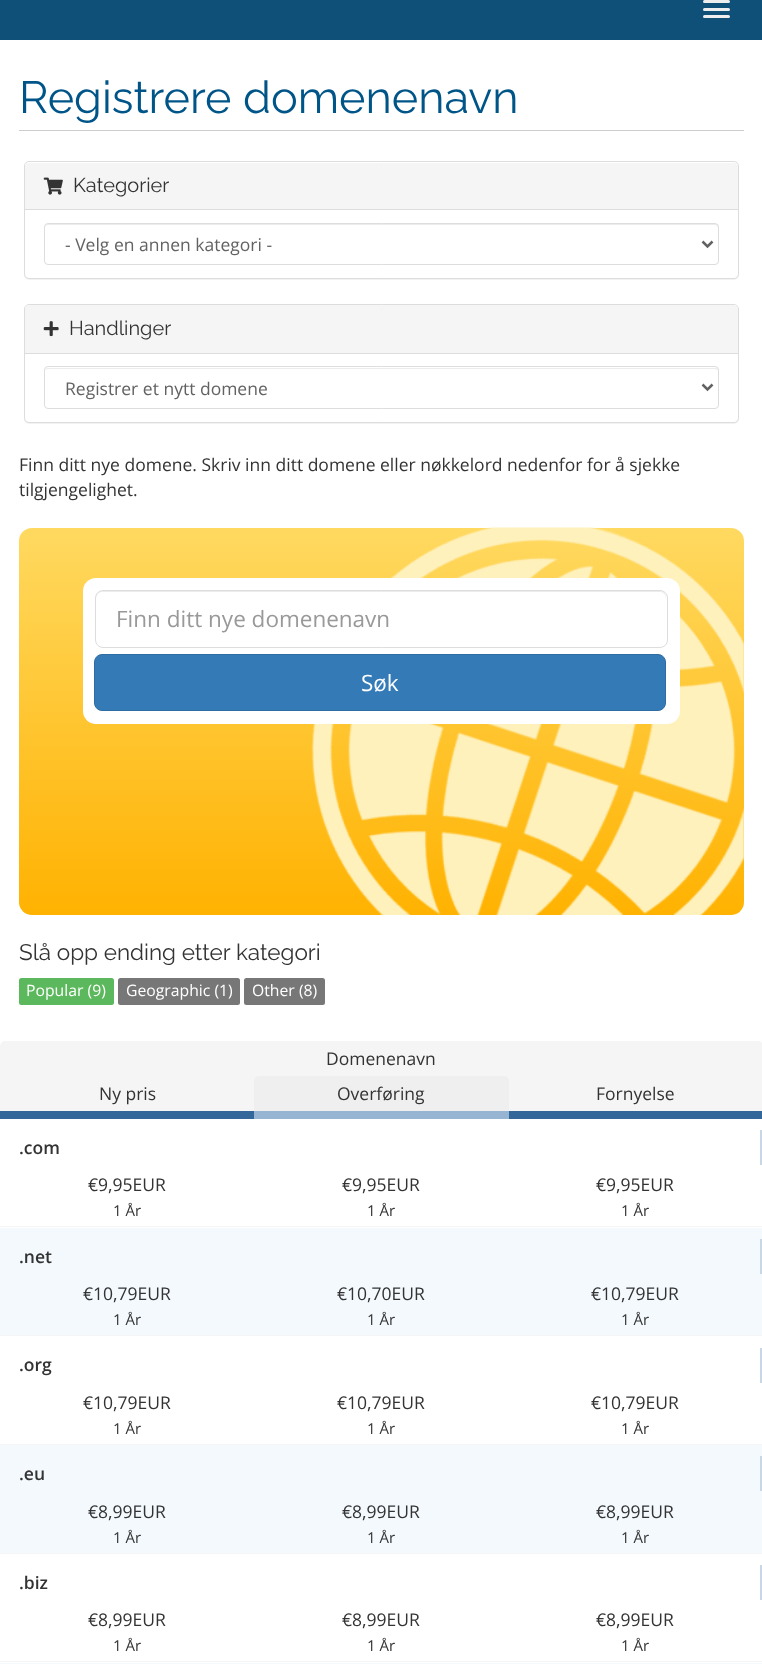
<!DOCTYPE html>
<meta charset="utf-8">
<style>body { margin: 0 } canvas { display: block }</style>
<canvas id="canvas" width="762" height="1664"></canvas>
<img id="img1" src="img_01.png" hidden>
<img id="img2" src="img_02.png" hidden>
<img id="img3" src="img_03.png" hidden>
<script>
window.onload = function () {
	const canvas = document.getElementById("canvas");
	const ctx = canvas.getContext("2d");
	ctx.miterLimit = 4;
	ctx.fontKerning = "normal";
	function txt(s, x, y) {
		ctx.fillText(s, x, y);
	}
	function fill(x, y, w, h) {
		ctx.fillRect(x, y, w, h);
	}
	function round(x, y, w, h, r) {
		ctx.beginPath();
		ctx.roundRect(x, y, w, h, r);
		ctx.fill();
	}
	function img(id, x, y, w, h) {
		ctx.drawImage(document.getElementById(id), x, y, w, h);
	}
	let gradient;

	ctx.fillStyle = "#FFFFFF";
	fill(0, 0, 762, 1664);
	ctx.fillStyle = "#0E5077";
	fill(0, 0, 762, 40);
	ctx.fillStyle = "#EEEEEE";
	round(703, 0, 27, 3, 1.5);
	round(703, 8, 27, 3, 1.5);
	round(703, 15, 27, 3, 1.5);
	ctx.fillStyle = "#CCCCCC";
	fill(19, 130, 725, 1);
	ctx.fillStyle = "rgba(0, 0, 0, 0.05)";
	ctx.filter = "blur(0.5px)";
	ctx.beginPath();
	ctx.roundRect(24, 163, 715, 117, 5);
	ctx.fill();
	ctx.filter = "none";
	ctx.fillStyle = "#FFFFFF";
	ctx.beginPath();
	ctx.roundRect(24.5, 161.5, 714, 117, 4.5);
	ctx.fill();
	ctx.strokeStyle = "#DDDDDD";
	ctx.stroke();
	ctx.fillStyle = "#F5F5F5";
	ctx.beginPath();
	ctx.roundRect(25, 163, 713, 47, [4, 4, 0, 0]);
	ctx.fill();
	ctx.fillStyle = "#DDDDDD";
	fill(25, 209, 713, 1);
	img("img1", 43, 177, 20, 18);
	ctx.fillStyle = "#ECECEC";
	ctx.beginPath();
	ctx.moveTo(48, 225);
	ctx.lineTo(715, 225);
	ctx.bezierCurveTo(716, 225, 718, 226, 718, 228);
	ctx.lineTo(718, 226);
	ctx.bezierCurveTo(718, 225, 717, 224, 716, 224);
	ctx.lineTo(48, 224);
	ctx.bezierCurveTo(46, 224, 45, 225, 45, 226);
	ctx.lineTo(45, 228);
	ctx.bezierCurveTo(45, 226, 46, 225, 48, 225);
	ctx.closePath();
	ctx.fill();
	ctx.beginPath();
	ctx.roundRect(44.5, 223.5, 674, 41, 3.5);
	ctx.stroke();
	ctx.beginPath();
	ctx.moveTo(702.5, 241.5);
	ctx.lineTo(707.5, 246.5);
	ctx.lineTo(712.5, 241.5);
	ctx.strokeStyle = "#626262";
	ctx.lineWidth = 2.5;
	ctx.stroke();
	ctx.fillStyle = "rgba(0, 0, 0, 0.05)";
	ctx.filter = "blur(0.5px)";
	ctx.beginPath();
	ctx.roundRect(24, 305, 715, 119, 5);
	ctx.fill();
	ctx.filter = "none";
	ctx.fillStyle = "#FFFFFF";
	ctx.beginPath();
	ctx.roundRect(24.5, 304.5, 714, 118, 4.5);
	ctx.fill();
	ctx.strokeStyle = "#DDDDDD";
	ctx.lineWidth = 1;
	ctx.stroke();
	ctx.fillStyle = "#F5F5F5";
	ctx.beginPath();
	ctx.roundRect(25, 305, 713, 49, [4, 4, 0, 0]);
	ctx.fill();
	ctx.fillStyle = "#DDDDDD";
	fill(25, 353, 713, 1);
	img("img2", 43, 321, 16, 16);
	ctx.fillStyle = "#ECECEC";
	ctx.beginPath();
	ctx.moveTo(48, 369);
	ctx.lineTo(715, 369);
	ctx.bezierCurveTo(716, 369, 718, 370, 718, 371);
	ctx.bezierCurveTo(718, 369, 717, 368, 716, 368);
	ctx.lineTo(48, 368);
	ctx.bezierCurveTo(46, 368, 45, 369, 45, 371);
	ctx.bezierCurveTo(45, 370, 46, 369, 48, 369);
	ctx.closePath();
	ctx.fill();
	ctx.beginPath();
	ctx.roundRect(44.5, 366.5, 674, 42, 3.5);
	ctx.stroke();
	ctx.beginPath();
	ctx.moveTo(702.5, 384.5);
	ctx.lineTo(707.5, 389.5);
	ctx.lineTo(712.5, 384.5);
	ctx.strokeStyle = "#626262";
	ctx.lineWidth = 2.5;
	ctx.stroke();
	gradient = ctx.createLinearGradient(381, 528, 381, 915);
	gradient.addColorStop(0, "#FFD960");
	gradient.addColorStop(1, "#FFB201");
	ctx.fillStyle = gradient;
	round(19, 528, 725, 387, 13);
	img("img3", 311, 527, 433, 388);
	ctx.fillStyle = "#FFFFFF";
	round(83, 578, 597, 146, 13);
	ctx.fillStyle = "#ECECEC";
	ctx.beginPath();
	ctx.moveTo(102, 592);
	ctx.lineTo(660, 592);
	ctx.bezierCurveTo(663, 592, 666, 595, 666, 599);
	ctx.lineTo(666, 597);
	ctx.bezierCurveTo(666, 594, 663, 591, 660, 591);
	ctx.lineTo(102, 591);
	ctx.bezierCurveTo(99, 591, 96, 594, 96, 597);
	ctx.lineTo(96, 599);
	ctx.bezierCurveTo(96, 595, 99, 592, 102, 592);
	ctx.closePath();
	ctx.fill();
	ctx.beginPath();
	ctx.roundRect(95.5, 590.5, 572, 57, 7.5);
	ctx.strokeStyle = "#DDDDDD";
	ctx.lineWidth = 1;
	ctx.stroke();
	ctx.fillStyle = "#337AB7";
	ctx.beginPath();
	ctx.roundRect(94.5, 654.5, 571, 56, 7.5);
	ctx.fill();
	ctx.strokeStyle = "#2E6DA4";
	ctx.stroke();
	ctx.fillStyle = "#5CB85C";
	round(19, 978, 95, 27, 2.5);
	ctx.fillStyle = "#777777";
	round(118, 978, 122, 27, 2.5);
	round(244, 978, 81, 27, 2.5);
	ctx.fillStyle = "#F5F5F5";
	ctx.beginPath();
	ctx.moveTo(5, 1041);
	ctx.lineTo(758, 1041);
	ctx.bezierCurveTo(761, 1041, 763, 1043, 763, 1046);
	ctx.lineTo(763, 1076);
	ctx.lineTo(0, 1076);
	ctx.lineTo(0, 1046);
	ctx.bezierCurveTo(0, 1043, 2, 1041, 5, 1041);
	ctx.closePath();
	ctx.fill();
	fill(0, 1076, 762, 35);
	ctx.fillStyle = "#336699";
	fill(0, 1111, 254, 8);
	ctx.fillStyle = "#EFEFEF";
	ctx.beginPath();
	ctx.roundRect(254, 1076, 255, 43, [5, 5, 0, 0]);
	ctx.fill();
	ctx.fillStyle = "#97B5D2";
	fill(254, 1111, 255, 8);
	ctx.fillStyle = "#336699";
	fill(509, 1111, 253, 8);
	ctx.fillStyle = "#F5F5F5";
	fill(0, 1226, 762, 1);
	ctx.fillStyle = "#C7D7E6";
	fill(760, 1130, 2, 35);
	ctx.fillStyle = "#F3F9FD";
	fill(0, 1228, 762, 107);
	ctx.fillStyle = "#F5F5F5";
	fill(0, 1335, 762, 1);
	ctx.fillStyle = "#C7D7E6";
	fill(760, 1239, 2, 35);
	ctx.fillStyle = "#F5F5F5";
	fill(0, 1444, 762, 1);
	ctx.fillStyle = "#C7D7E6";
	fill(760, 1348, 2, 35);
	ctx.fillStyle = "#F3F9FD";
	fill(0, 1445, 762, 108);
	ctx.fillStyle = "#F5F5F5";
	fill(0, 1553, 762, 1);
	ctx.fillStyle = "#C7D7E6";
	fill(760, 1456, 2, 35);
	ctx.fillStyle = "#F5F5F5";
	fill(0, 1661, 762, 1);
	ctx.fillStyle = "#C7D7E6";
	fill(760, 1565, 2, 35);
	ctx.fillStyle = "#F3F9FD";
	fill(0, 1663, 762, 1);
	ctx.font = "45px Raleway";
	ctx.fillStyle = "#005588";
	txt("Registrere domenenavn", 19, 113);
	ctx.font = "20px Raleway";
	ctx.fillStyle = "#333333";
	txt("Kategorier", 73, 192);
	ctx.font = "17.5px Open Sans";
	ctx.fillStyle = "#626262";
	txt("- Velg en annen kategori -", 65, 251);
	ctx.font = "20px Raleway";
	ctx.fillStyle = "#333333";
	txt("Handlinger", 69, 335);
	ctx.font = "17.5px Open Sans";
	ctx.fillStyle = "#626262";
	txt("Registrer et nytt domene", 65, 395);
	ctx.fillStyle = "#333333";
	txt("Finn ditt nye domene. Skriv inn ditt domene eller nøkkelord nedenfor for å sjekke", 19, 471);
	txt("tilgjengelighet.", 19, 496);
	ctx.font = "22.5px Open Sans";
	ctx.fillStyle = "#999999";
	txt("Finn ditt nye domenenavn", 116, 627);
	ctx.fillStyle = "#FFFFFF";
	txt("Søk", 361, 691);
	ctx.font = "22.5px Raleway";
	ctx.fillStyle = "#333333";
	txt("Slå opp ending etter kategori", 19, 960);
	ctx.font = "15.75px Open Sans";
	ctx.fillStyle = "#FFFFFF";
	txt("Popular (9)", 26, 996);
	txt("Geographic (1)", 126, 996);
	txt("Other (8)", 252, 996);
	ctx.font = "17.5px Open Sans";
	ctx.fillStyle = "#333333";
	txt("Domenenavn", 326, 1065);
	txt("Ny pris", 99, 1100);
	txt("Overføring", 337, 1100);
	txt("Fornyelse", 596, 1100);
	ctx.font = "600 17.5px Open Sans";
	txt(".com", 19, 1154);
	ctx.font = "17.5px Open Sans";
	txt("€9,95EUR", 88, 1191);
	ctx.font = "15px Open Sans";
	txt("1 År", 113, 1216);
	ctx.font = "17.5px Open Sans";
	txt("€9,95EUR", 342, 1191);
	ctx.font = "15px Open Sans";
	txt("1 År", 367, 1216);
	ctx.font = "17.5px Open Sans";
	txt("€9,95EUR", 596, 1191);
	ctx.font = "15px Open Sans";
	txt("1 År", 621, 1216);
	ctx.font = "600 17.5px Open Sans";
	txt(".net", 19, 1263);
	ctx.font = "17.5px Open Sans";
	txt("€10,79EUR", 83, 1300);
	ctx.font = "15px Open Sans";
	txt("1 År", 113, 1325);
	ctx.font = "17.5px Open Sans";
	txt("€10,70EUR", 337, 1300);
	ctx.font = "15px Open Sans";
	txt("1 År", 367, 1325);
	ctx.font = "17.5px Open Sans";
	txt("€10,79EUR", 591, 1300);
	ctx.font = "15px Open Sans";
	txt("1 År", 621, 1325);
	ctx.font = "600 17.5px Open Sans";
	txt(".org", 19, 1371);
	ctx.font = "17.5px Open Sans";
	txt("€10,79EUR", 83, 1409);
	ctx.font = "15px Open Sans";
	txt("1 År", 113, 1434);
	ctx.font = "17.5px Open Sans";
	txt("€10,79EUR", 337, 1409);
	ctx.font = "15px Open Sans";
	txt("1 År", 367, 1434);
	ctx.font = "17.5px Open Sans";
	txt("€10,79EUR", 591, 1409);
	ctx.font = "15px Open Sans";
	txt("1 År", 621, 1434);
	ctx.font = "600 17.5px Open Sans";
	txt(".eu", 19, 1480);
	ctx.font = "17.5px Open Sans";
	txt("€8,99EUR", 88, 1518);
	ctx.font = "15px Open Sans";
	txt("1 År", 113, 1543);
	ctx.font = "17.5px Open Sans";
	txt("€8,99EUR", 342, 1518);
	ctx.font = "15px Open Sans";
	txt("1 År", 367, 1543);
	ctx.font = "17.5px Open Sans";
	txt("€8,99EUR", 596, 1518);
	ctx.font = "15px Open Sans";
	txt("1 År", 621, 1543);
	ctx.font = "600 17.5px Open Sans";
	txt(".biz", 19, 1589);
	ctx.font = "17.5px Open Sans";
	txt("€8,99EUR", 88, 1626);
	ctx.font = "15px Open Sans";
	txt("1 År", 113, 1651);
	ctx.font = "17.5px Open Sans";
	txt("€8,99EUR", 342, 1626);
	ctx.font = "15px Open Sans";
	txt("1 År", 367, 1651);
	ctx.font = "17.5px Open Sans";
	txt("€8,99EUR", 596, 1626);
	ctx.font = "15px Open Sans";
	txt("1 År", 621, 1651);
};
</script>
